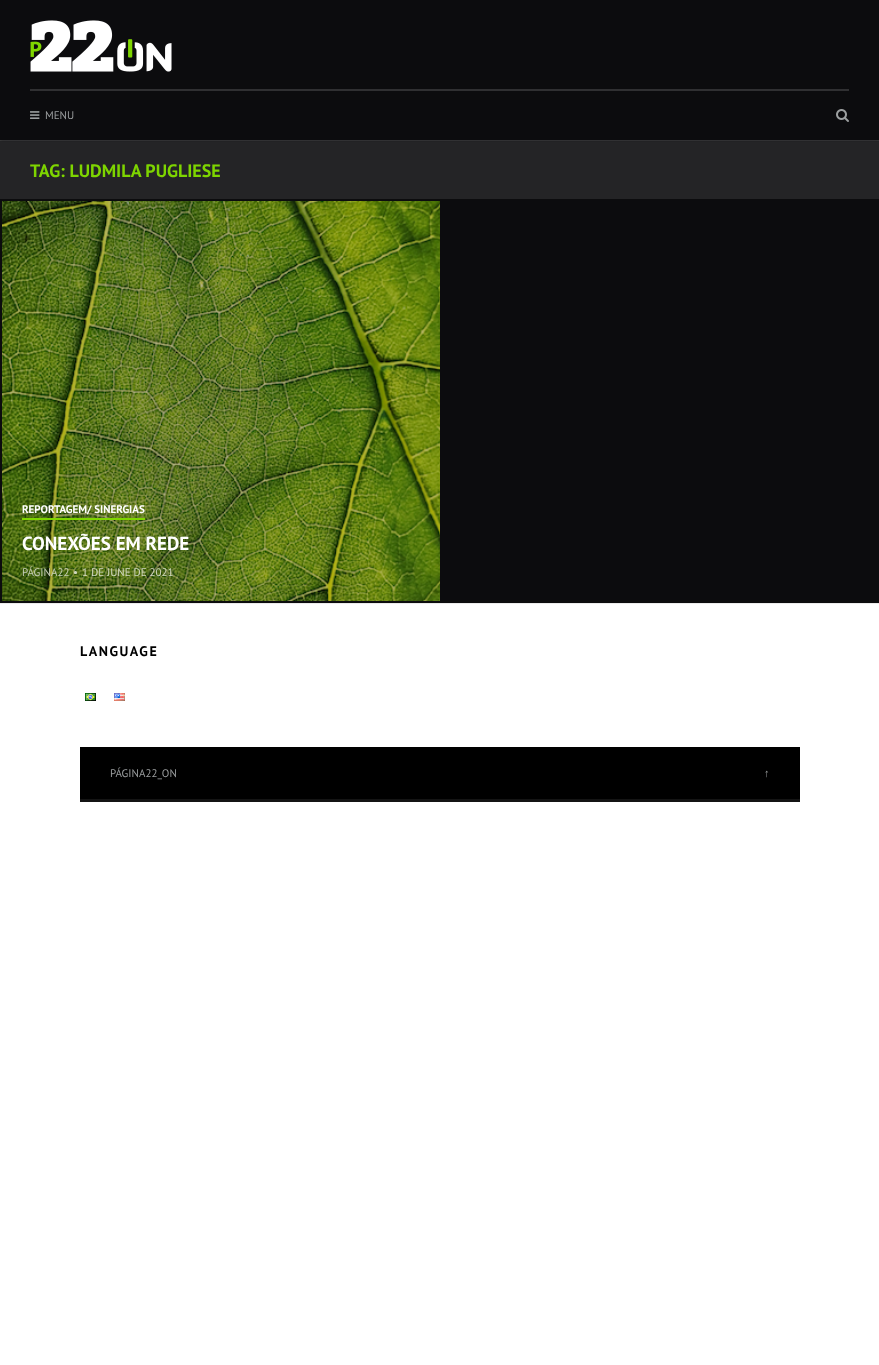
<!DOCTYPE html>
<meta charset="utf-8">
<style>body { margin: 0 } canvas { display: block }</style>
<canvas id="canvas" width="879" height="1365"></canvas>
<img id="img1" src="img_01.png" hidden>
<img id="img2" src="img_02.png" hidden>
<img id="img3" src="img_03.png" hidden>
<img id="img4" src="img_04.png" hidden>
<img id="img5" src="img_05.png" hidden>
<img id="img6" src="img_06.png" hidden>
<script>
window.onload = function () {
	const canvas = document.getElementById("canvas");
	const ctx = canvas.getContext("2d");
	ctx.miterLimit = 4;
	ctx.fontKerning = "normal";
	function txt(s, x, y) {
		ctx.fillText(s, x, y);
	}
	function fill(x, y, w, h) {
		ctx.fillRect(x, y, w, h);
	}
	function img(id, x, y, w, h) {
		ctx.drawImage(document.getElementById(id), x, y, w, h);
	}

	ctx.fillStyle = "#FFFFFF";
	fill(0, 0, 879, 1365);
	ctx.fillStyle = "#242426";
	fill(0, 141, 879, 58);
	ctx.fillStyle = "#3A3A3C";
	fill(0, 140, 879, 1);
	ctx.fillStyle = "rgba(0, 0, 0, 0.45)";
	ctx.filter = "blur(1px)";
	ctx.beginPath();
	ctx.rect(1, 0, 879, 140);
	ctx.fill();
	ctx.filter = "none";
	ctx.fillStyle = "#0C0C0E";
	fill(0, 0, 879, 140);
	ctx.fillStyle = "#303032";
	fill(30, 89, 819, 2);
	img("img1", 30, 20, 142, 52);
	img("img2", 30, 111, 10, 8);
	img("img3", 836, 109, 13, 13);
	ctx.fillStyle = "#0C0C0E";
	fill(0, 199, 879, 404);
	img("img4", 2, 201, 438, 400);
	ctx.fillStyle = "#7ED500";
	fill(22, 518, 123, 2);
	ctx.fillStyle = "#EBEBEB";
	fill(0, 603, 879, 1);
	img("img5", 85, 693, 11, 8);
	img("img6", 114, 693, 11, 8);
	ctx.fillStyle = "#000000";
	fill(80, 747, 720, 52);
	ctx.fillStyle = "#141414";
	fill(80, 799, 720, 3);
	ctx.font = "11px PT Sans";
	ctx.fillStyle = "#9C9FA0";
	txt("MENU", 45, 119);
	ctx.font = "bold 18px PT Sans";
	ctx.fillStyle = "#7ED500";
	txt("TAG: LUDMILA PUGLIESE", 30, 177);
	ctx.font = "bold 11px PT Sans";
	ctx.fillStyle = "#FFFFFF";
	txt("REPORTAGEM/ SINERGIAS", 22, 513);
	ctx.font = "bold 19px PT Sans";
	txt("CONEXÕES EM REDE", 22, 550);
	ctx.font = "11px PT Sans";
	ctx.fillStyle = "#C7CFB8";
	txt("PÁGINA22", 22, 576);
	ctx.fillStyle = "#D0D7BF";
	txt("•", 73, 576);
	txt("1 DE JUNE DE 2021", 82, 576);
	ctx.letterSpacing = "1.5px";
	ctx.font = "bold 14px PT Sans";
	ctx.fillStyle = "#000000";
	txt("LANGUAGE", 80, 656);
	ctx.letterSpacing = "0px";
	ctx.font = "11px PT Sans";
	ctx.fillStyle = "#9C9FA0";
	txt("PÁGINA22_ON", 110, 777);
	ctx.font = "11px Liberation Sans";
	txt("↑", 764, 777);
};
</script>
